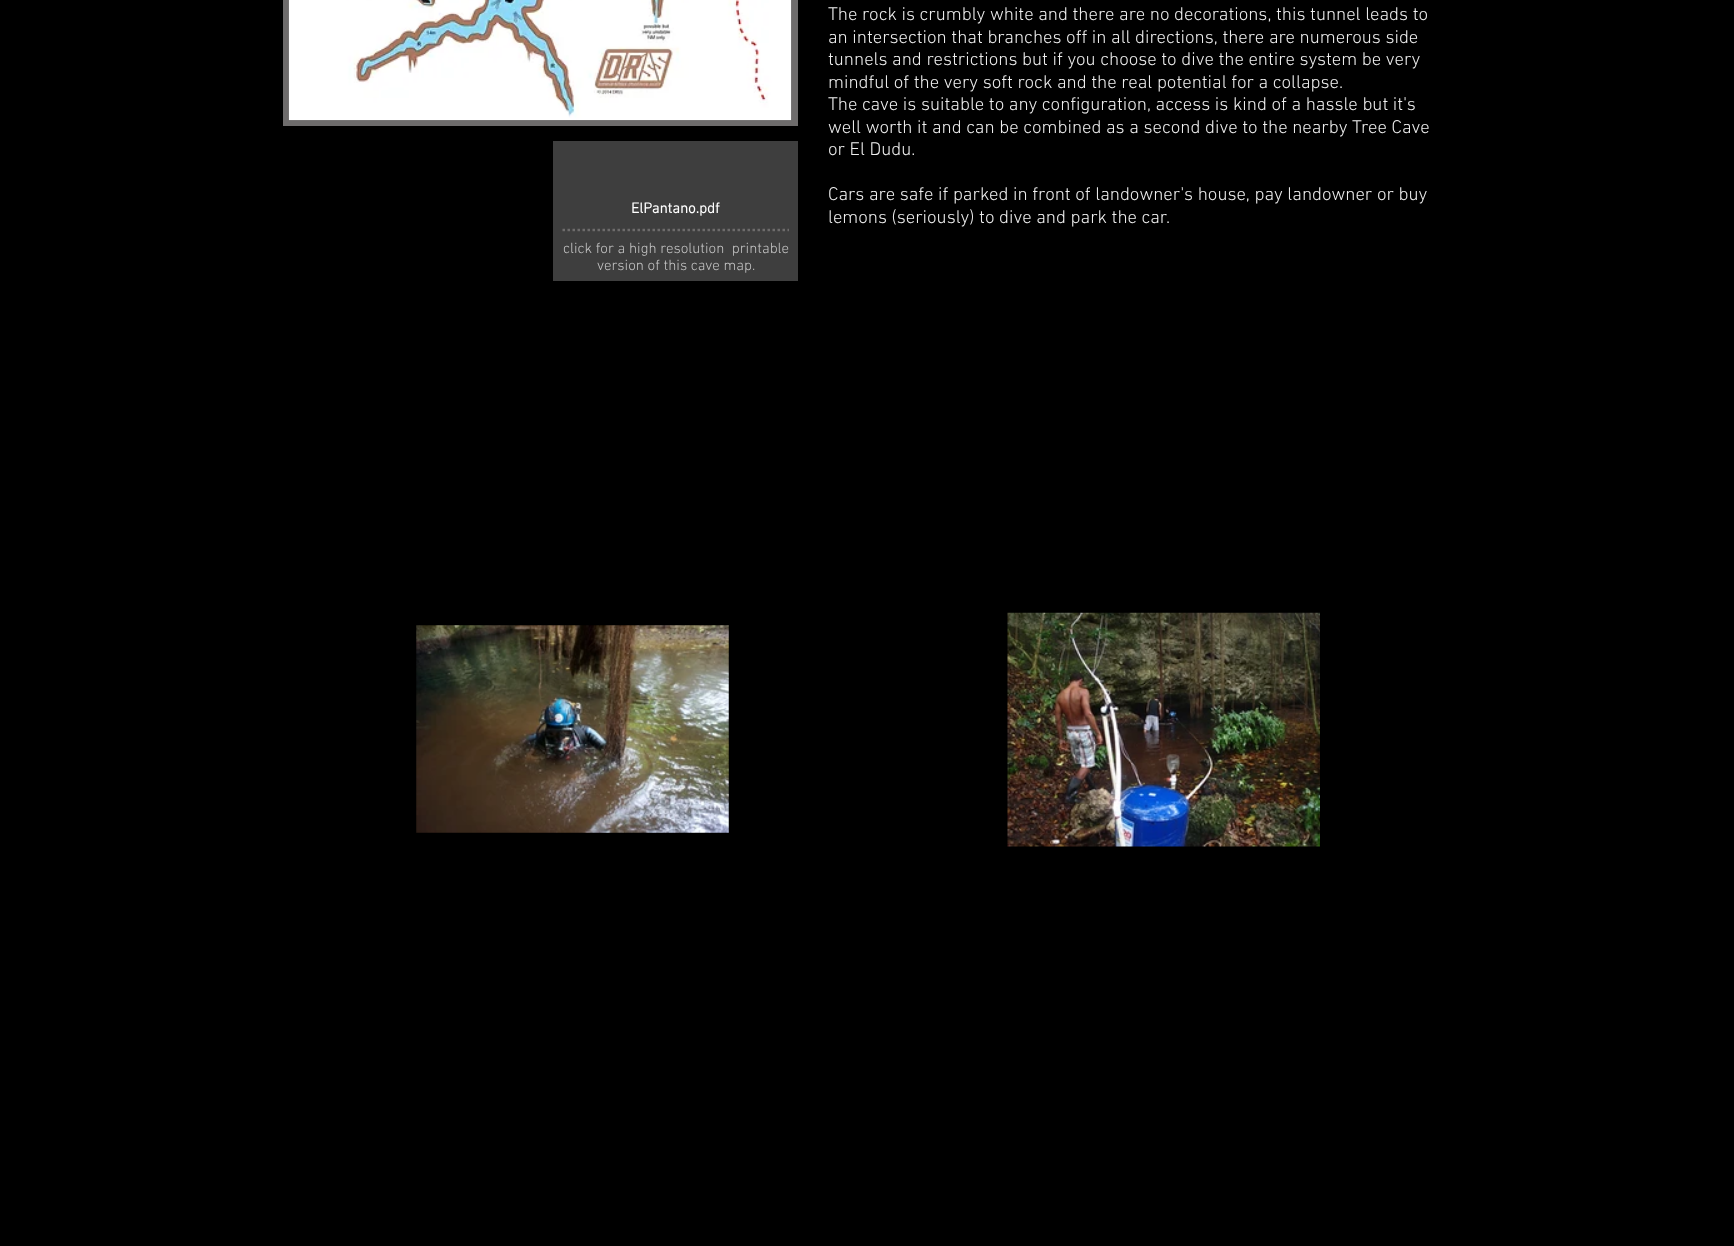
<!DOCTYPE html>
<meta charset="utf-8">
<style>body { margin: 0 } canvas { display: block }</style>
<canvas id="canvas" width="1734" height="1246"></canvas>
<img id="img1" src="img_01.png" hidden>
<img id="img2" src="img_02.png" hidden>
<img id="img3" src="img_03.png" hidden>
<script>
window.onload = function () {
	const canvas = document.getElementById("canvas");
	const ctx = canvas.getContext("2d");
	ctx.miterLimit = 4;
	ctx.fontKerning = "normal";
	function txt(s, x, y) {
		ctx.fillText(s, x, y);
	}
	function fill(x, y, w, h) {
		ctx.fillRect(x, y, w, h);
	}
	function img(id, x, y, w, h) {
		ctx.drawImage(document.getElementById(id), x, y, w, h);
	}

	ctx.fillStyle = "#000000";
	fill(0, 0, 1734, 1246);
	ctx.fillStyle = "#6E6C6C";
	fill(283, 0, 515, 126);
	img("img1", 288, 0, 504, 121);
	ctx.fillStyle = "#3E3E3E";
	fill(553, 141, 245, 140);
	ctx.beginPath();
	ctx.moveTo(562.5, 230);
	ctx.lineTo(789, 230);
	ctx.strokeStyle = "#6E6C6C";
	ctx.lineWidth = 2.5;
	ctx.setLineDash([2.5, 2.5]);
	ctx.stroke();
	img("img2", 416, 625, 313, 208);
	img("img3", 1007, 612, 313, 235);
	ctx.font = "300 18.75px 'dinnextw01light'";
	ctx.fillStyle = "#EFEFEF";
	txt("The rock is crumbly white and there are no decorations, this tunnel leads to", 828, 20);
	txt("an intersection that branches off in all directions, there are numerous side", 828, 43);
	txt("tunnels and restrictions but if you choose to dive the entire system be very", 828, 65);
	txt("mindful of the very soft rock and the real potential for a collapse.", 828, 88);
	txt("The cave is suitable to any configuration, access is kind of a hassle but it's", 828, 110);
	txt("well worth it and can be combined as a second dive to the nearby Tree Cave", 828, 133);
	txt("or El Dudu.", 828, 155);
	txt("Cars are safe if parked in front of landowner's house, pay landowner or buy", 828, 200);
	txt("lemons (seriously) to dive and park the car.", 828, 223);
	ctx.font = "bold 15px 'dinnextw01light'";
	ctx.fillStyle = "#FFFFFF";
	txt("ElPantano.pdf", 631, 213);
	ctx.font = "300 15px 'dinnextw01light'";
	ctx.fillStyle = "#C4C4C4";
	txt("click for a high resolution  printable", 563, 253);
	txt("version of this cave map.", 597, 270);
};
</script>
